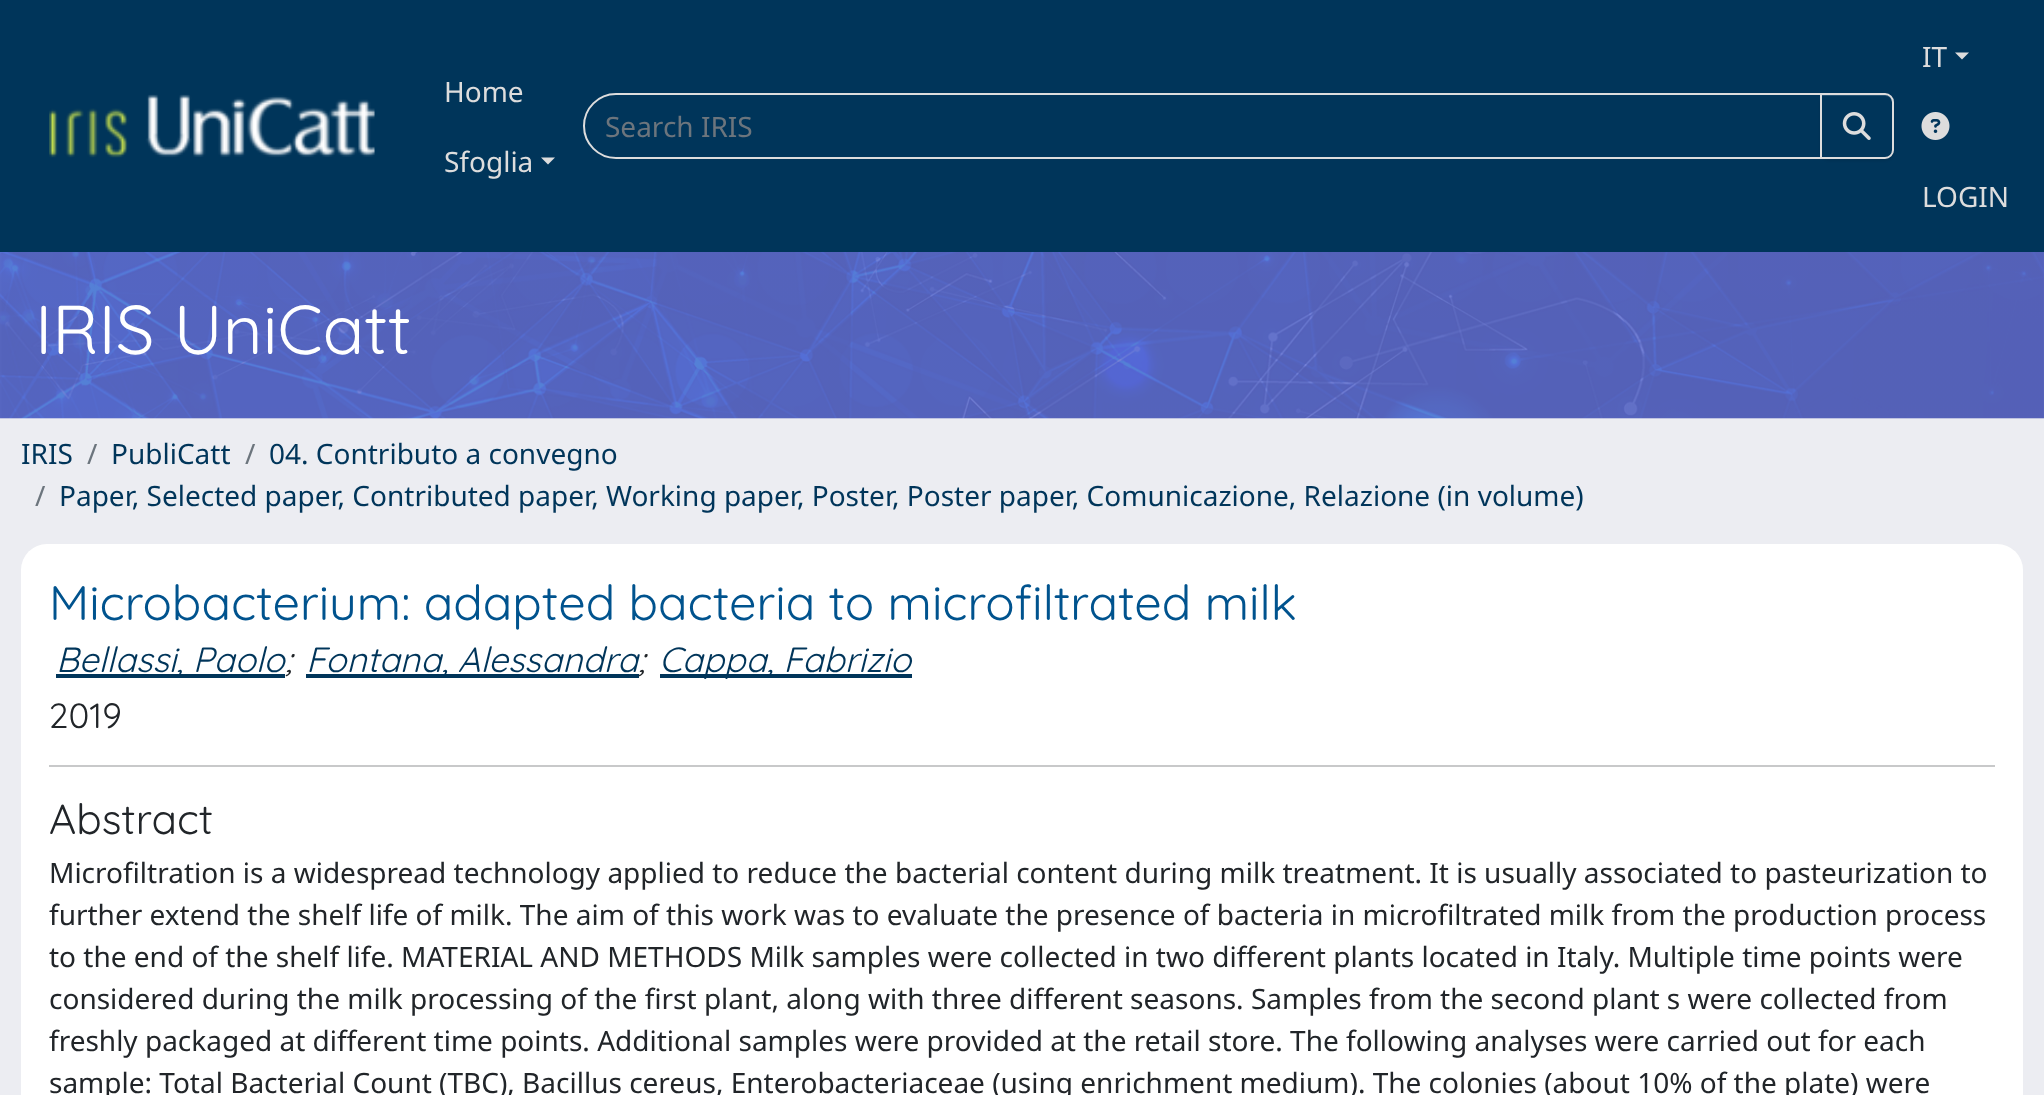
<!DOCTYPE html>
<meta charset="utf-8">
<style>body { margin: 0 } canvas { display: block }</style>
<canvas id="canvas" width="2044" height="1095"></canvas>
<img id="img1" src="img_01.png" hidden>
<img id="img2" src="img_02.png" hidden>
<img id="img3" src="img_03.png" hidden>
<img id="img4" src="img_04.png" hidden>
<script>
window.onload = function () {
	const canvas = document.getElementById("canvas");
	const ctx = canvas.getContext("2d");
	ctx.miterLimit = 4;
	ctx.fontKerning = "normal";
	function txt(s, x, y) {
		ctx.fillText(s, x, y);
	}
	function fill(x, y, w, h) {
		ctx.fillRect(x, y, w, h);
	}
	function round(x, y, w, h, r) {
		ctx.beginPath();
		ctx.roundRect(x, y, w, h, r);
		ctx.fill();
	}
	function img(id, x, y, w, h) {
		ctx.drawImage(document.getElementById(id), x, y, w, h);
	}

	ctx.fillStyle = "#ECEDF2";
	fill(0, 0, 2044, 1095);
	ctx.fillStyle = "#00355A";
	fill(0, 0, 2044, 252);
	img("img1", 49, 94, 326, 64);
	ctx.fillStyle = "#DDDDDD";
	ctx.beginPath();
	ctx.moveTo(541, 157.5);
	ctx.lineTo(555, 157.5);
	ctx.lineTo(548, 164.5);
	ctx.closePath();
	ctx.fill();
	ctx.beginPath();
	ctx.roundRect(584, 94, 1237, 64, [32, 0, 0, 32]);
	ctx.strokeStyle = "#DDDDDD";
	ctx.lineWidth = 2;
	ctx.stroke();
	ctx.fillStyle = "rgba(0, 0, 0, 0.07)";
	ctx.filter = "blur(1px)";
	ctx.beginPath();
	ctx.roundRect(1820, 95, 74, 66, 9);
	ctx.fill();
	ctx.filter = "none";
	ctx.fillStyle = "#00355A";
	ctx.beginPath();
	ctx.roundRect(1820, 93, 74, 66, [0, 9, 9, 0]);
	ctx.fill();
	ctx.fillStyle = "#265373";
	ctx.beginPath();
	ctx.moveTo(1822, 96);
	ctx.lineTo(1885, 96);
	ctx.bezierCurveTo(1889, 96, 1892, 99, 1892, 103);
	ctx.lineTo(1892, 102);
	ctx.bezierCurveTo(1892, 98, 1889, 95, 1885, 95);
	ctx.lineTo(1822, 95);
	ctx.closePath();
	ctx.fill();
	ctx.beginPath();
	ctx.roundRect(1821, 94, 72, 64, [0, 8, 8, 0]);
	ctx.stroke();
	img("img2", 1842, 112, 29, 28);
	ctx.fillStyle = "#DDDDDD";
	ctx.beginPath();
	ctx.moveTo(1955, 52.5);
	ctx.lineTo(1969, 52.5);
	ctx.lineTo(1962, 59.5);
	ctx.closePath();
	ctx.fill();
	img("img3", 1921, 112, 29, 28);
	img("img4", 0, 252, 2044, 167);
	ctx.fillStyle = "#FFFFFF";
	round(21, 544, 2002, 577, 26);
	ctx.fillStyle = "#00355A";
	fill(56, 674, 229, 4);
	fill(306, 674, 333, 4);
	fill(660, 674, 252, 4);
	ctx.fillStyle = "#C8C9CA";
	fill(49, 765, 1946, 2);
	ctx.font = "28px Noto Sans";
	ctx.fillStyle = "#DDDDDD";
	txt("Home", 444, 102);
	txt("Sfoglia", 444, 172);
	ctx.fillStyle = "#6C757D";
	txt("Search IRIS", 605, 137);
	ctx.fillStyle = "#DDDDDD";
	txt("IT", 1922, 67);
	txt("LOGIN", 1922, 207);
	ctx.font = "69px Quicksand";
	ctx.fillStyle = "#FFFFFF";
	txt("IRIS UniCatt", 35, 354);
	ctx.font = "28px Noto Sans";
	ctx.fillStyle = "#00355A";
	txt("IRIS", 21, 464);
	ctx.fillStyle = "#6C757D";
	txt("/", 87, 464);
	ctx.fillStyle = "#00355A";
	txt("PubliCatt", 111, 464);
	ctx.fillStyle = "#6C757D";
	txt("/", 245, 464);
	ctx.fillStyle = "#00355A";
	txt("04. Contributo a convegno", 269, 464);
	ctx.fillStyle = "#6C757D";
	txt("/", 35, 506);
	ctx.fillStyle = "#00355A";
	txt("Paper, Selected paper, Contributed paper, Working paper, Poster, Poster paper, Comunicazione, Relazione (in volume)", 59, 506);
	ctx.font = "48.65px Quicksand";
	ctx.fillStyle = "#00538E";
	txt("Microbacterium: adapted bacteria to microfiltrated milk", 49, 620);
	ctx.font = "italic 35px Quicksand";
	ctx.fillStyle = "#00355A";
	txt("Bellassi, Paolo", 56, 672);
	ctx.fillStyle = "#212529";
	txt(";", 285, 672);
	ctx.fillStyle = "#00355A";
	txt("Fontana, Alessandra", 306, 672);
	ctx.fillStyle = "#212529";
	txt(";", 638, 672);
	ctx.fillStyle = "#00355A";
	txt("Cappa, Fabrizio", 659, 672);
	ctx.font = "35px Quicksand";
	ctx.fillStyle = "#212529";
	txt("2019", 49, 728);
	ctx.font = "42px Quicksand";
	txt("Abstract", 49, 834);
	ctx.font = "28px Noto Sans";
	txt("Microfiltration is a widespread technology applied to reduce the bacterial content during milk treatment. It is usually associated to pasteurization to", 49, 883);
	txt("further extend the shelf life of milk. The aim of this work was to evaluate the presence of bacteria in microfiltrated milk from the production process", 49, 925);
	txt("to the end of the shelf life. MATERIAL AND METHODS Milk samples were collected in two different plants located in Italy. Multiple time points were", 49, 967);
	txt("considered during the milk processing of the first plant, along with three different seasons. Samples from the second plant s were collected from", 49, 1009);
	txt("freshly packaged at different time points. Additional samples were provided at the retail store. The following analyses were carried out for each", 49, 1051);
	txt("sample: Total Bacterial Count (TBC), Bacillus cereus, Enterobacteriaceae (using enrichment medium). The colonies (about 10% of the plate) were", 49, 1093);
};
</script>
